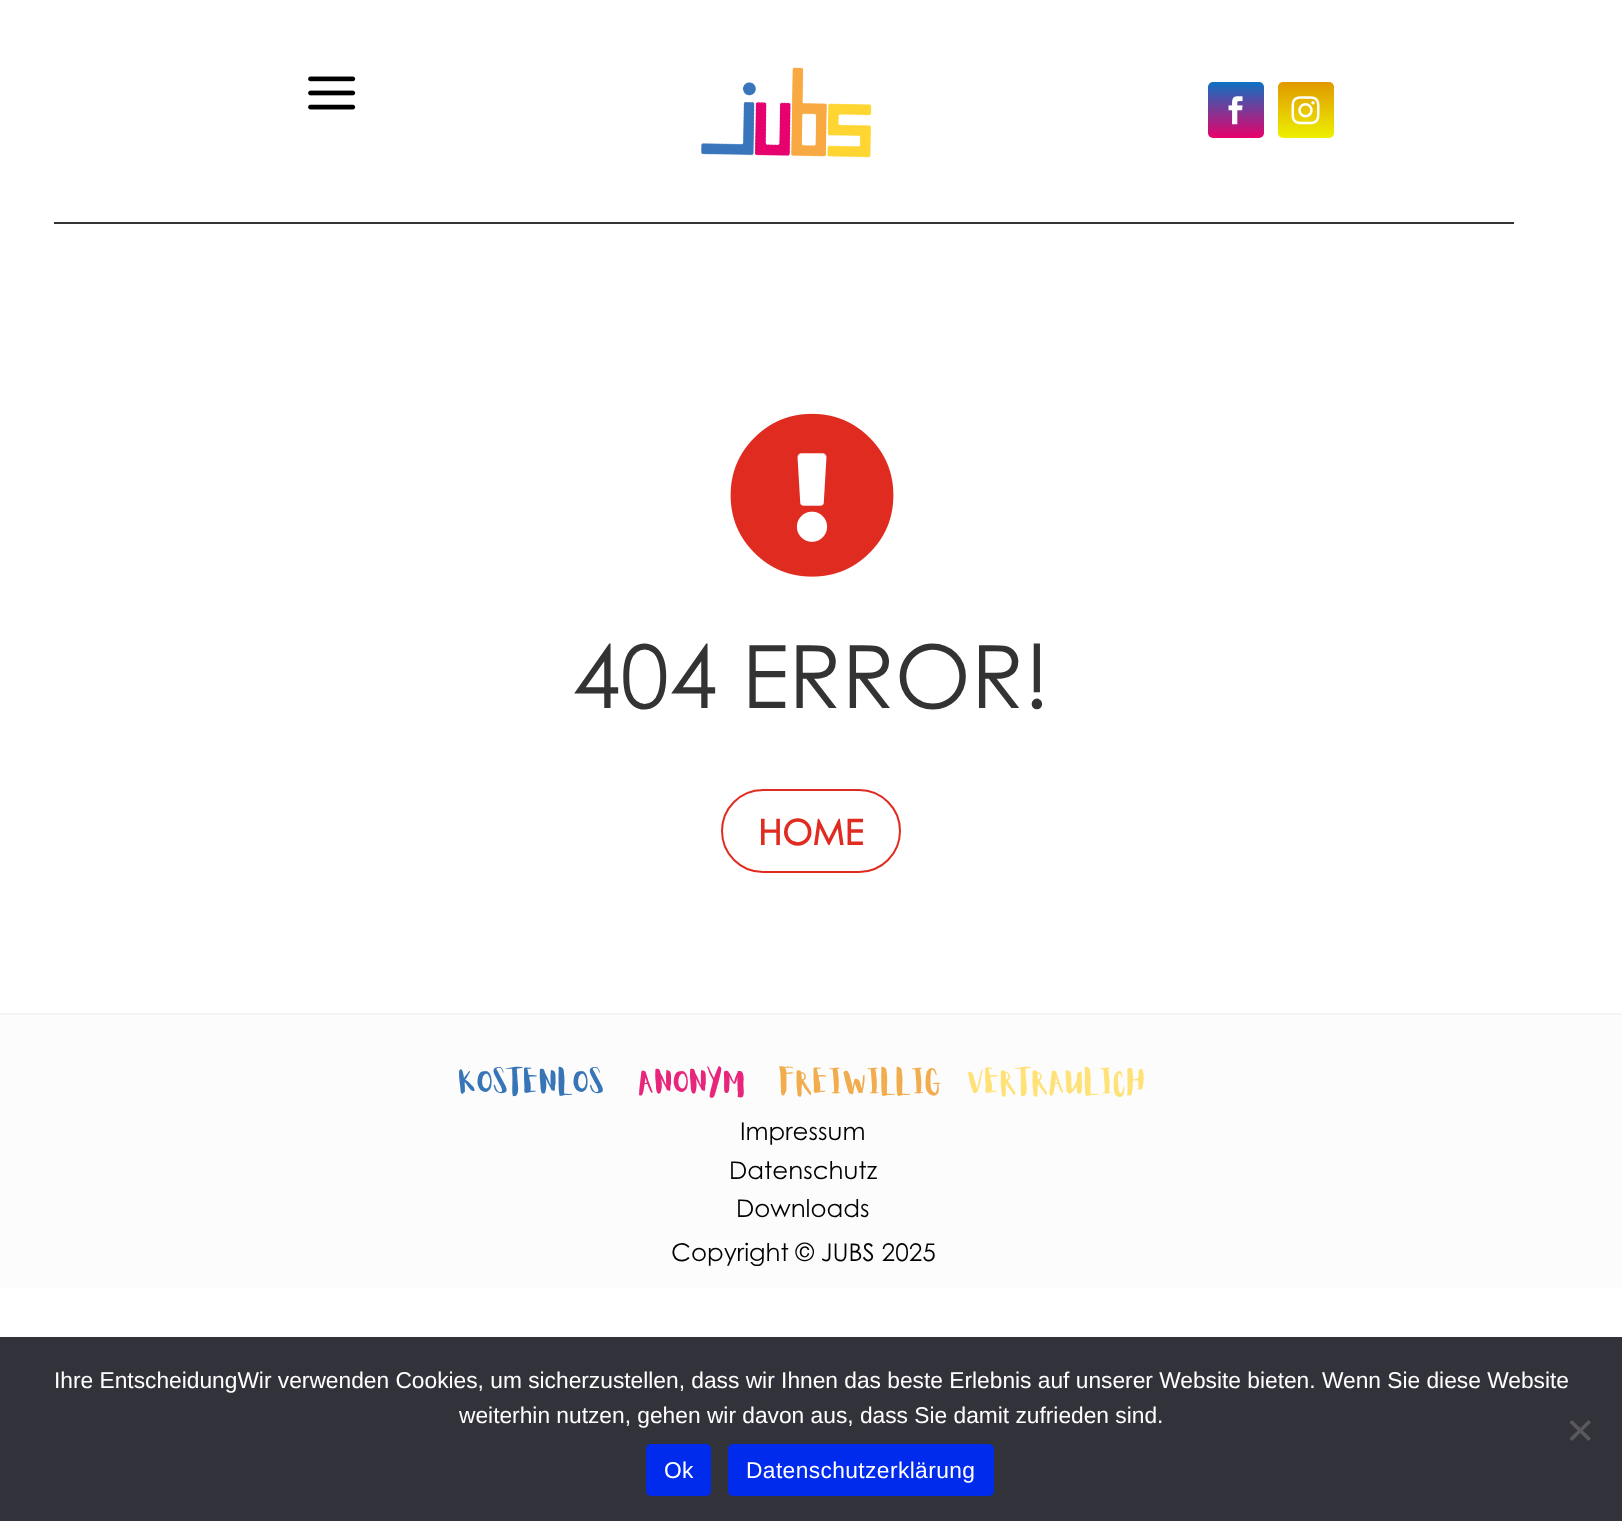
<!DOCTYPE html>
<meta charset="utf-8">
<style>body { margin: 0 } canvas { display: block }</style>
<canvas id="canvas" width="1622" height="1521"></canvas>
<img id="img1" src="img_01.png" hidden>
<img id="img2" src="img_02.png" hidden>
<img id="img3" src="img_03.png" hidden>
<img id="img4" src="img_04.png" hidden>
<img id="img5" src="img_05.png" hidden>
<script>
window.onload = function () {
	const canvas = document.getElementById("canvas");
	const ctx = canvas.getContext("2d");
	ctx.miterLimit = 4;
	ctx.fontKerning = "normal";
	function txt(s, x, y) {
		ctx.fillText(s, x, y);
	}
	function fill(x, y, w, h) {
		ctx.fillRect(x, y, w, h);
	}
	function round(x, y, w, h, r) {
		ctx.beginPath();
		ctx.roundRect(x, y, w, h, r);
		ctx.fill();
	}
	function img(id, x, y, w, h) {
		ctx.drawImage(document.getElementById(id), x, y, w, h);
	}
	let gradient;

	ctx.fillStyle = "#FFFFFF";
	fill(0, 0, 1622, 1521);
	ctx.fillStyle = "#333333";
	fill(54, 222, 1460, 2);
	img("img1", 308, 76, 48, 34);
	img("img2", 701, 67, 171, 91);
	gradient = ctx.createLinearGradient(1236, 82, 1236, 138);
	gradient.addColorStop(0, "#0C71C3");
	gradient.addColorStop(1, "#EA0069");
	ctx.fillStyle = gradient;
	round(1208, 82, 56, 56, 5);
	img("img3", 1228, 96, 15, 29);
	gradient = ctx.createLinearGradient(1306, 82, 1306, 138);
	gradient.addColorStop(0, "#E09900");
	gradient.addColorStop(1, "#EDF000");
	ctx.fillStyle = gradient;
	round(1278, 82, 56, 56, 5);
	img("img4", 1291, 96, 29, 29);
	img("img5", 730, 413, 164, 164);
	ctx.beginPath();
	ctx.roundRect(722, 790, 178, 82, 41);
	ctx.strokeStyle = "#E02B20";
	ctx.lineWidth = 2;
	ctx.stroke();
	ctx.fillStyle = "#FCFCFC";
	fill(0, 1015, 1622, 273);
	ctx.fillStyle = "#F4F4F4";
	fill(0, 1013, 1622, 2);
	ctx.fillStyle = "#32323A";
	fill(0, 1337, 1622, 184);
	ctx.fillStyle = "#59595D";
	ctx.beginPath();
	ctx.moveTo(1588.5, 1420);
	ctx.lineTo(1591, 1422.5);
	ctx.lineTo(1572, 1441);
	ctx.lineTo(1569.5, 1438.5);
	ctx.closePath();
	ctx.fill();
	ctx.beginPath();
	ctx.moveTo(1569.5, 1422.5);
	ctx.lineTo(1572, 1420);
	ctx.lineTo(1591, 1438.5);
	ctx.lineTo(1588.5, 1441);
	ctx.closePath();
	ctx.fill();
	ctx.fillStyle = "#002BED";
	round(646, 1444, 65, 52, 5);
	round(728, 1444, 266, 52, 5);
	ctx.font = "87.5px Century Gothic";
	ctx.fillStyle = "#333333";
	txt("404 ERROR!", 572, 708);
	ctx.font = "bold 35px Century Gothic";
	ctx.fillStyle = "#E02B20";
	txt("HOME", 758, 845);
	ctx.font = "28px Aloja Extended";
	ctx.fillStyle = "#3775B6";
	txt("KOSTENLOS", 459, 1093);
	ctx.fillStyle = "#E7257B";
	txt("ANONYM", 639, 1093);
	ctx.fillStyle = "#F1AC4D";
	txt("FREIWILLIG", 779, 1093);
	ctx.fillStyle = "#FFE277";
	txt("VERTRAULICH", 968, 1093);
	ctx.font = "24.5px Century Gothic";
	ctx.fillStyle = "#000000";
	txt("Impressum", 740, 1140);
	txt("Datenschutz", 729, 1179);
	txt("Downloads", 736, 1217);
	txt("Copyright © JUBS 2025", 671, 1261);
	ctx.font = "22.75px Liberation Sans";
	ctx.fillStyle = "#FFFFFF";
	txt("Ihre EntscheidungWir verwenden Cookies, um sicherzustellen, dass wir Ihnen das beste Erlebnis auf unserer Website bieten. Wenn Sie diese Website", 54, 1388);
	txt("weiterhin nutzen, gehen wir davon aus, dass Sie damit zufrieden sind.", 459, 1423);
	ctx.letterSpacing = "0.4px";
	txt("Ok", 664, 1478);
	txt("Datenschutzerklärung", 746, 1478);
};
</script>
